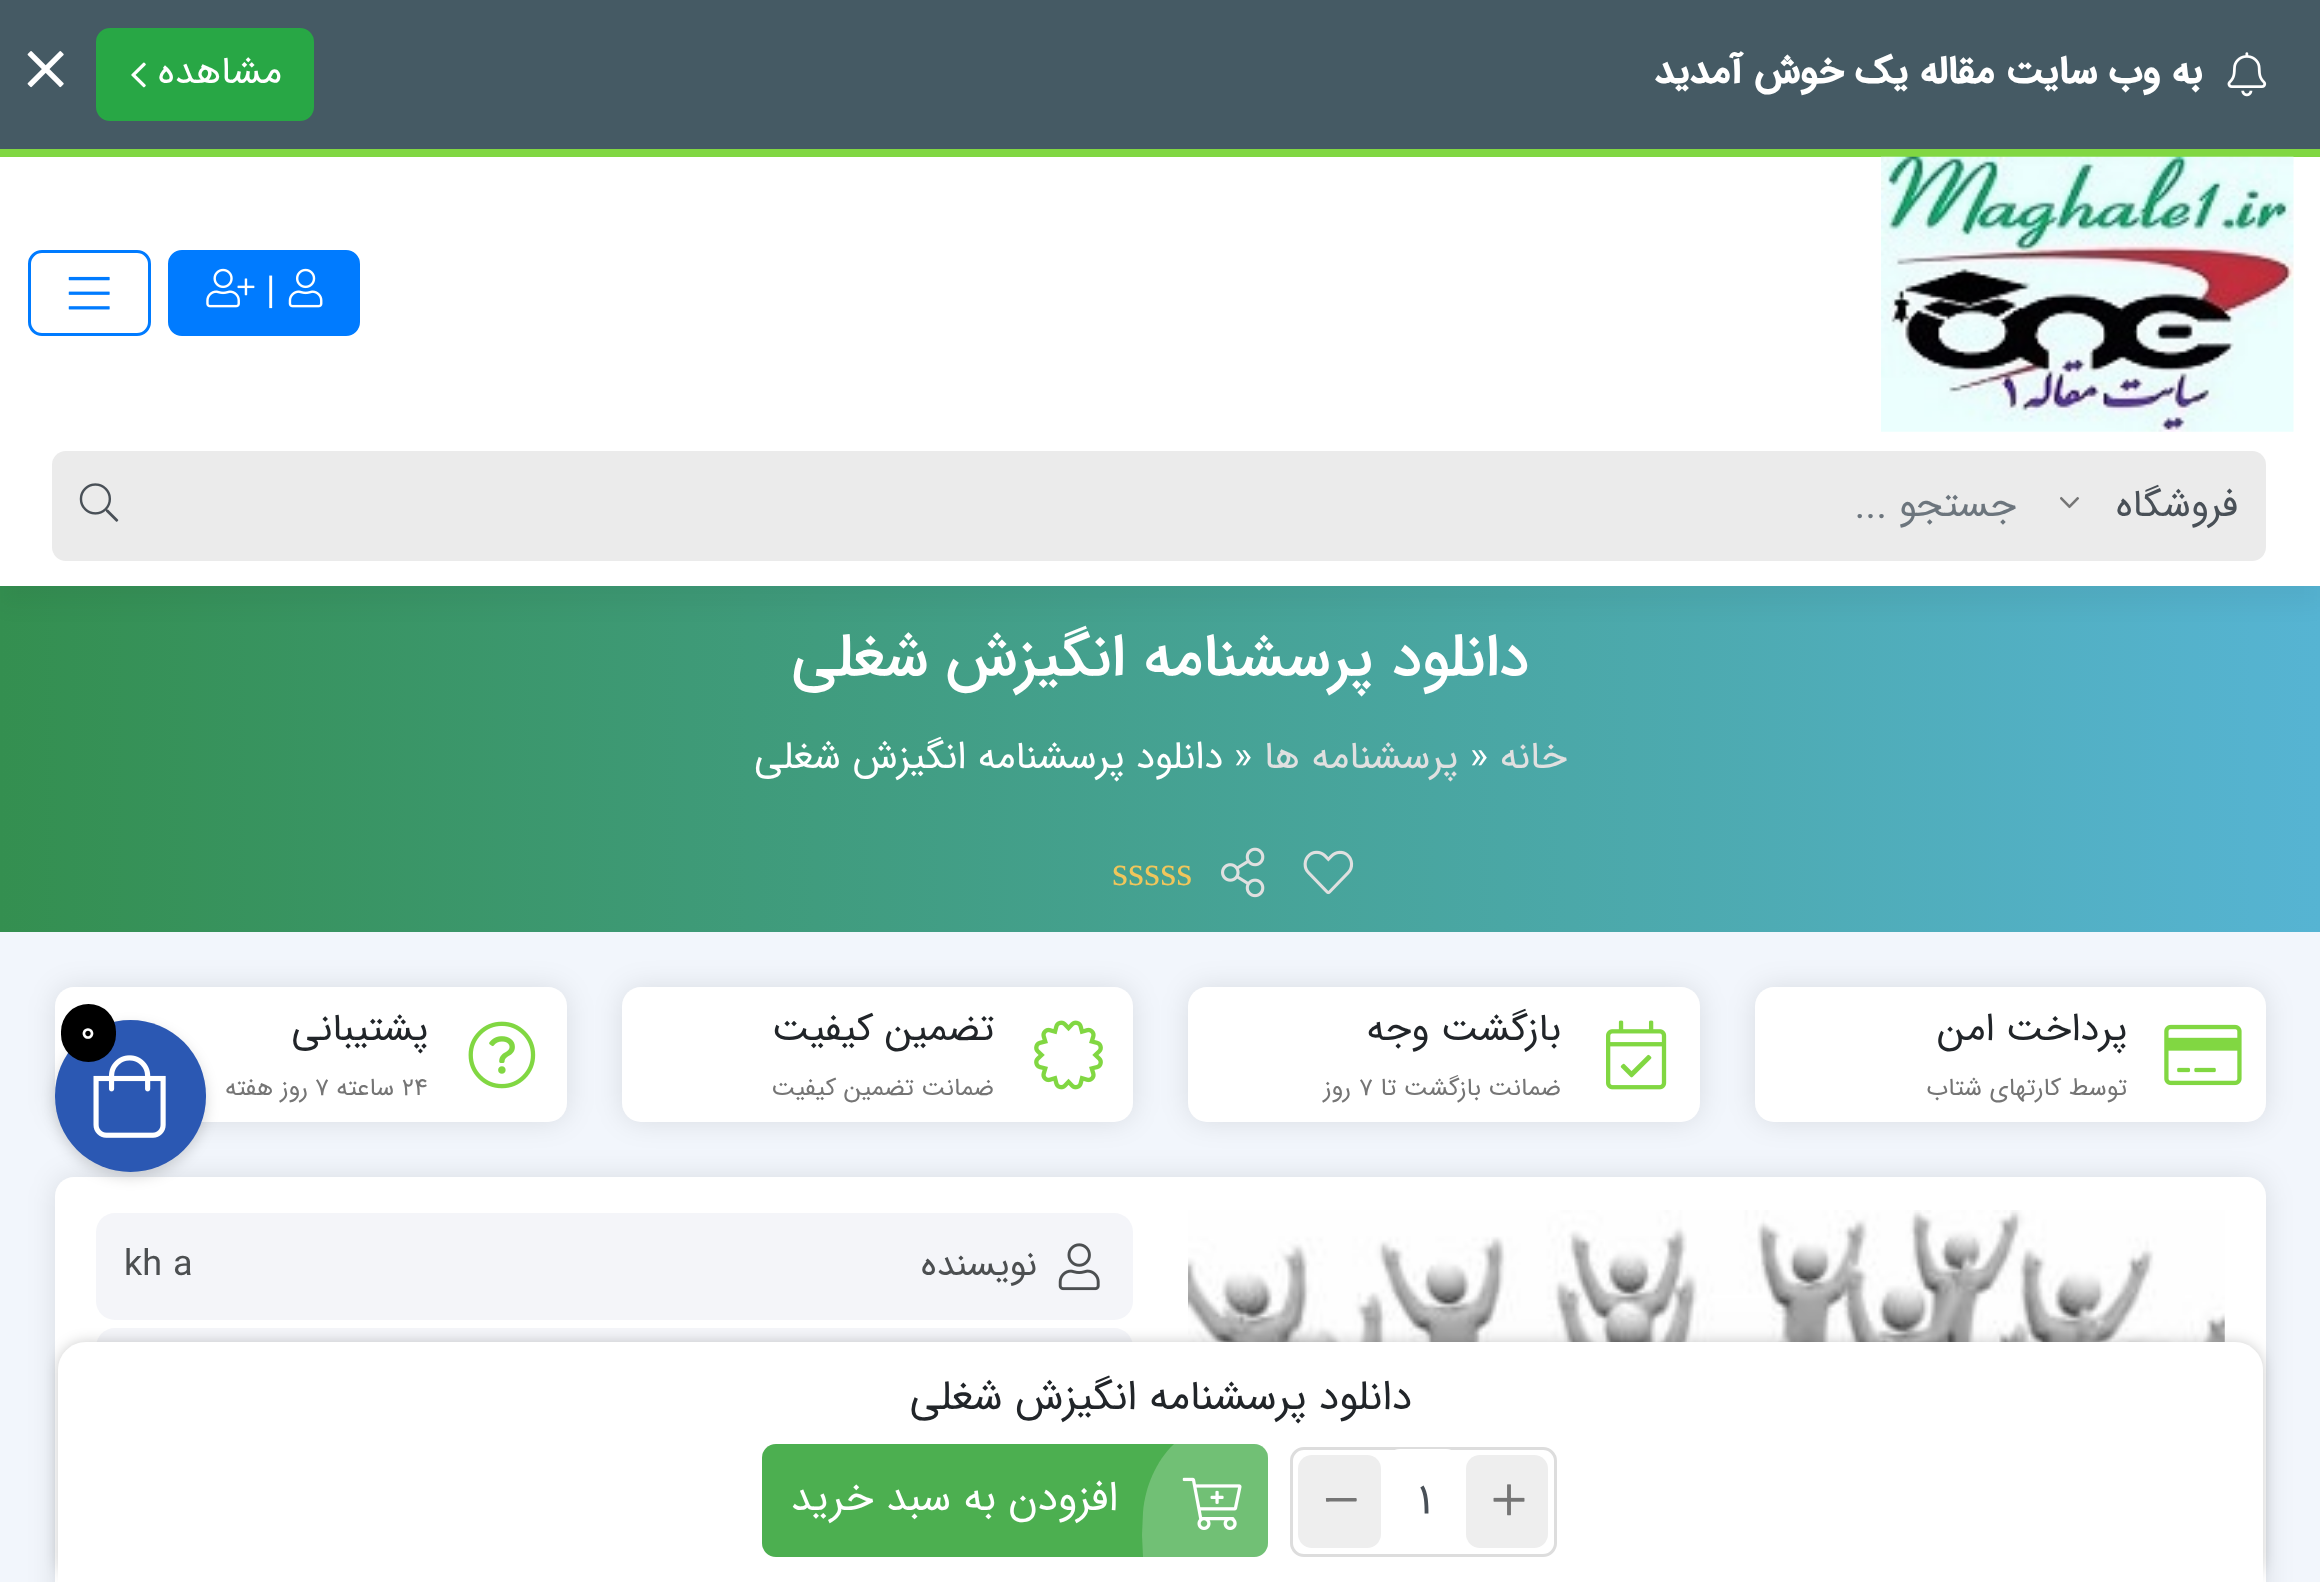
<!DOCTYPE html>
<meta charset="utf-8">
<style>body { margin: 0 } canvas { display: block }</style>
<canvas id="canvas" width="2320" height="1582"></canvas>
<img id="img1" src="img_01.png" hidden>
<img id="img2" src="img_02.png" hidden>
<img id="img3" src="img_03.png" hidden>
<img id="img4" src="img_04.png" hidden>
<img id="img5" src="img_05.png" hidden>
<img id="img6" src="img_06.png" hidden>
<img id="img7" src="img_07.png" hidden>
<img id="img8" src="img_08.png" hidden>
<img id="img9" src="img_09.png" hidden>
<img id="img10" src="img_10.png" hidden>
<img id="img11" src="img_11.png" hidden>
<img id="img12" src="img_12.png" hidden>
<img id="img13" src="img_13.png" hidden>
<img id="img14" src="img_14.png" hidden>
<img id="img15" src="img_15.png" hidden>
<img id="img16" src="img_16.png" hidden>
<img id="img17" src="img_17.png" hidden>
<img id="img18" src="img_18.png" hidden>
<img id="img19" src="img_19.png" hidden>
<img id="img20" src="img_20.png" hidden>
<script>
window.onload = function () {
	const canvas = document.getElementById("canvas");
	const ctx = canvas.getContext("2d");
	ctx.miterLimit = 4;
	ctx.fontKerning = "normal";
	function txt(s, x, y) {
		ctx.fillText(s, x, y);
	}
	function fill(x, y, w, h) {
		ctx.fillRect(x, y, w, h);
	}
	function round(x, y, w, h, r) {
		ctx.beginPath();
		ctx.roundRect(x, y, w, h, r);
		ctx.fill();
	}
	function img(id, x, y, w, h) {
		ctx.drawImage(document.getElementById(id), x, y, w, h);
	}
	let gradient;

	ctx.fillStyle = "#F2F6FC";
	fill(0, 0, 2320, 1582);
	ctx.fillStyle = "#81D742";
	fill(0, 149, 2320, 8);
	gradient = ctx.createLinearGradient(0, 759, 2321, 759);
	gradient.addColorStop(0, "#348F50");
	gradient.addColorStop(1, "#56B4D3");
	ctx.fillStyle = gradient;
	fill(0, 586, 2320, 346);
	ctx.fillStyle = "rgba(0, 0, 0, 0.04)";
	ctx.filter = "blur(11px)";
	ctx.beginPath();
	ctx.rect(0, 176, 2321, 429);
	ctx.fill();
	ctx.filter = "none";
	ctx.fillStyle = "#455A64";
	fill(0, 0, 2320, 149);
	img("img1", 2227, 52, 40, 45);
	ctx.fillStyle = "#28A745";
	ctx.beginPath();
	ctx.roundRect(97.5, 29.5, 215, 90, 12.5);
	ctx.fill();
	ctx.strokeStyle = "#28A745";
	ctx.lineWidth = 3;
	ctx.stroke();
	img("img2", 131, 62, 15, 26);
	img("img3", 27, 51, 37, 37);
	ctx.fillStyle = "#FFFFFF";
	fill(0, 157, 2320, 429);
	img("img4", 1881, 156, 413, 276);
	ctx.fillStyle = "#007BFF";
	ctx.beginPath();
	ctx.roundRect(169.5, 251.5, 189, 83, 12.5);
	ctx.fill();
	ctx.strokeStyle = "#007BFF";
	ctx.stroke();
	img("img5", 288, 268, 35, 40);
	img("img6", 206, 268, 49, 40);
	ctx.beginPath();
	ctx.roundRect(29.5, 251.5, 120, 83, 12.5);
	ctx.stroke();
	img("img7", 68, 276, 42, 34);
	ctx.fillStyle = "#EBEBEB";
	ctx.beginPath();
	ctx.roundRect(2060, 451, 206, 110, [0, 14, 14, 0]);
	ctx.fill();
	img("img8", 2060, 496, 20, 13);
	fill(162, 451, 1898, 110);
	ctx.beginPath();
	ctx.roundRect(52, 451, 110, 110, [14, 0, 0, 14]);
	ctx.fill();
	img("img9", 79, 483, 40, 39);
	img("img10", 1303, 850, 51, 45);
	img("img11", 1221, 847, 44, 51);
	ctx.fillStyle = "rgba(0, 0, 0, 0.1)";
	ctx.filter = "blur(14px)";
	ctx.beginPath();
	ctx.roundRect(1755, 987, 511, 135, 19);
	ctx.fill();
	ctx.filter = "none";
	ctx.fillStyle = "#FFFFFF";
	round(1755, 987, 511, 135, 19);
	img("img12", 2164, 1024, 78, 62);
	ctx.fillStyle = "rgba(0, 0, 0, 0.1)";
	ctx.filter = "blur(14px)";
	ctx.beginPath();
	ctx.roundRect(1188, 987, 512, 135, 19);
	ctx.fill();
	ctx.filter = "none";
	ctx.fillStyle = "#FFFFFF";
	round(1188, 987, 512, 135, 19);
	img("img13", 1606, 1020, 61, 70);
	ctx.fillStyle = "rgba(0, 0, 0, 0.1)";
	ctx.filter = "blur(14px)";
	ctx.beginPath();
	ctx.roundRect(622, 987, 511, 135, 19);
	ctx.fill();
	ctx.filter = "none";
	ctx.fillStyle = "#FFFFFF";
	round(622, 987, 511, 135, 19);
	img("img14", 1034, 1020, 69, 70);
	ctx.fillStyle = "rgba(0, 0, 0, 0.1)";
	ctx.filter = "blur(14px)";
	ctx.beginPath();
	ctx.roundRect(55, 987, 512, 135, 19);
	ctx.fill();
	ctx.filter = "none";
	ctx.fillStyle = "#FFFFFF";
	round(55, 987, 512, 135, 19);
	img("img15", 468, 1021, 68, 68);
	ctx.fillStyle = "rgba(0, 0, 0, 0.1)";
	ctx.filter = "blur(14px)";
	ctx.beginPath();
	ctx.roundRect(55, 1177, 2211, 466, 19);
	ctx.fill();
	ctx.filter = "none";
	ctx.fillStyle = "#FFFFFF";
	round(55, 1177, 2211, 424, 19);
	img("img16", 1188, 1210, 1037, 132);
	ctx.fillStyle = "#F4F5F9";
	round(96, 1213, 1037, 107, 19);
	img("img17", 1058, 1243, 42, 48);
	round(96, 1328, 1037, 110, 19);
	ctx.fillStyle = "rgba(0, 0, 0, 0.16)";
	ctx.filter = "blur(7px)";
	ctx.beginPath();
	ctx.roundRect(55, 1026, 151, 151, 75.5);
	ctx.fill();
	ctx.filter = "none";
	ctx.fillStyle = "#2B58B3";
	round(55, 1020, 151, 152, 75.5);
	img("img18", 93, 1055, 73, 83);
	ctx.fillStyle = "#000000";
	round(61, 1004, 55, 58, 27.5);
	ctx.fillStyle = "rgba(0, 0, 0, 0.2)";
	ctx.filter = "blur(7px)";
	ctx.beginPath();
	ctx.roundRect(58, 1342, 2205, 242, 28);
	ctx.fill();
	ctx.filter = "none";
	ctx.fillStyle = "#FFFFFF";
	ctx.beginPath();
	ctx.moveTo(86, 1342);
	ctx.lineTo(2235, 1342);
	ctx.bezierCurveTo(2250.5, 1342, 2263, 1354.5, 2263, 1370);
	ctx.lineTo(2263, 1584);
	ctx.lineTo(58, 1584);
	ctx.lineTo(58, 1370);
	ctx.bezierCurveTo(58, 1354.5, 70.5, 1342, 86, 1342);
	ctx.closePath();
	ctx.fill();
	ctx.beginPath();
	ctx.roundRect(1291.5, 1448.5, 264, 107, 12.5);
	ctx.strokeStyle = "#DDDDDD";
	ctx.stroke();
	ctx.fillStyle = "#EEEEEE";
	round(1466, 1455, 82, 93, 14);
	img("img19", 1493, 1484, 32, 32);
	ctx.fillStyle = "#FFFFFF";
	round(1386, 1449, 74, 105, 14);
	ctx.fillStyle = "#EEEEEE";
	round(1298, 1455, 83, 93, 14);
	ctx.fillStyle = "#757575";
	ctx.beginPath();
	ctx.moveTo(1356, 1498);
	ctx.bezierCurveTo(1357, 1498, 1357, 1501.5, 1356, 1501.5);
	ctx.lineTo(1331.5, 1501.5);
	ctx.bezierCurveTo(1326, 1501.5, 1326, 1503, 1326, 1499.5);
	ctx.bezierCurveTo(1326, 1499, 1325.5, 1498, 1326.5, 1498);
	ctx.closePath();
	ctx.fill();
	ctx.fillStyle = "#4CAF50";
	round(762, 1444, 506, 113, 14);
	img("img20", 1182, 1477, 60, 53);
	ctx.fillStyle = "rgba(255, 255, 255, 0.21)";
	ctx.beginPath();
	ctx.moveTo(1143, 1557);
	ctx.lineTo(1142, 1535);
	ctx.lineTo(1143, 1512);
	ctx.bezierCurveTo(1145, 1487, 1156, 1461, 1174, 1444);
	ctx.lineTo(1254, 1444);
	ctx.bezierCurveTo(1262, 1444, 1268, 1450, 1268, 1458);
	ctx.lineTo(1268, 1543);
	ctx.bezierCurveTo(1268, 1551, 1262, 1557, 1254, 1557);
	ctx.closePath();
	ctx.fill();
	ctx.direction = "rtl";
	ctx.font = "bold 38.5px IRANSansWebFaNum";
	ctx.fillStyle = "#FFFFFF";
	txt("به وب سایت مقاله یک خوش آمدید", 2202, 83);
	ctx.font = "38.5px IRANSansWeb";
	txt("مشاهده", 282, 83);
	ctx.direction = "ltr";
	txt("|", 266, 303);
	ctx.direction = "rtl";
	ctx.fillStyle = "#495057";
	txt("فروشگاه", 2238, 516);
	ctx.fillStyle = "#6C757D";
	txt("جستجو ...", 2016, 516);
	ctx.font = "500 60.5px IRANSansWebFaNum";
	ctx.fillStyle = "#FFFFFF";
	txt("دانلود پرسشنامه انگیزش شغلی", 1529, 675);
	ctx.font = "38.5px IRANSansWebFaNum";
	ctx.fillStyle = "#E0E0E0";
	txt("خانه", 1567, 768);
	ctx.direction = "ltr";
	ctx.fillStyle = "#FFFFFF";
	txt("»", 1470, 768);
	ctx.direction = "rtl";
	ctx.fillStyle = "#E0E0E0";
	txt("پرسشنامه ها", 1458, 768);
	ctx.direction = "ltr";
	ctx.fillStyle = "#FFFFFF";
	txt("»", 1234, 768);
	ctx.direction = "rtl";
	txt("دانلود پرسشنامه انگیزش شغلی", 1223, 768);
	ctx.direction = "ltr";
	ctx.font = "41.25px Liberation Serif";
	ctx.fillStyle = "#F0C65B";
	txt("sssss", 1112, 885);
	ctx.direction = "rtl";
	ctx.font = "38.5px IRANSansWeb";
	ctx.fillStyle = "#212529";
	txt("پرداخت امن", 2127, 1040);
	ctx.font = "24.75px IRANSansWebFaNum";
	ctx.fillStyle = "#757575";
	txt("توسط کارتهای شتاب", 2127, 1095);
	ctx.font = "38.5px IRANSansWeb";
	ctx.fillStyle = "#212529";
	txt("بازگشت وجه", 1561, 1040);
	ctx.font = "24.75px IRANSansWebFaNum";
	ctx.fillStyle = "#757575";
	txt("ضمانت بازگشت تا", 1561, 1095);
	ctx.direction = "ltr";
	txt("7", 1359, 1095);
	ctx.direction = "rtl";
	txt("روز", 1351, 1095);
	ctx.font = "38.5px IRANSansWeb";
	ctx.fillStyle = "#212529";
	txt("تضمین کیفیت", 994, 1040);
	ctx.font = "24.75px IRANSansWebFaNum";
	ctx.fillStyle = "#757575";
	txt("ضمانت تضمین کیفیت", 994, 1095);
	ctx.font = "38.5px IRANSansWeb";
	ctx.fillStyle = "#212529";
	txt("پشتیبانی", 428, 1040);
	ctx.direction = "ltr";
	ctx.font = "24.75px IRANSansWebFaNum";
	ctx.fillStyle = "#757575";
	txt("24", 402, 1095);
	ctx.direction = "rtl";
	txt("ساعته", 394, 1095);
	ctx.direction = "ltr";
	txt("7", 315, 1095);
	ctx.direction = "rtl";
	txt("روز هفته", 308, 1095);
	ctx.font = "36px IRANSansWebFaNum";
	ctx.fillStyle = "#4C4F51";
	txt("نویسنده", 1037, 1275);
	ctx.direction = "ltr";
	txt("kh a", 124, 1275);
	ctx.fillStyle = "#FFFFFF";
	txt("0", 80, 1042);
	ctx.direction = "rtl";
	ctx.font = "41.25px IRANSansWeb";
	ctx.fillStyle = "#212529";
	txt("دانلود پرسشنامه انگیزش شغلی", 1412, 1409);
	ctx.direction = "ltr";
	ctx.font = "44px IRANSansWebFaNum";
	ctx.fillStyle = "#495057";
	txt("1", 1418, 1513);
	ctx.direction = "rtl";
	ctx.font = "41.25px IRANSansWeb";
	ctx.fillStyle = "#FFFFFF";
	txt("افزودن به سبد خرید", 1118, 1510);
};
</script>
